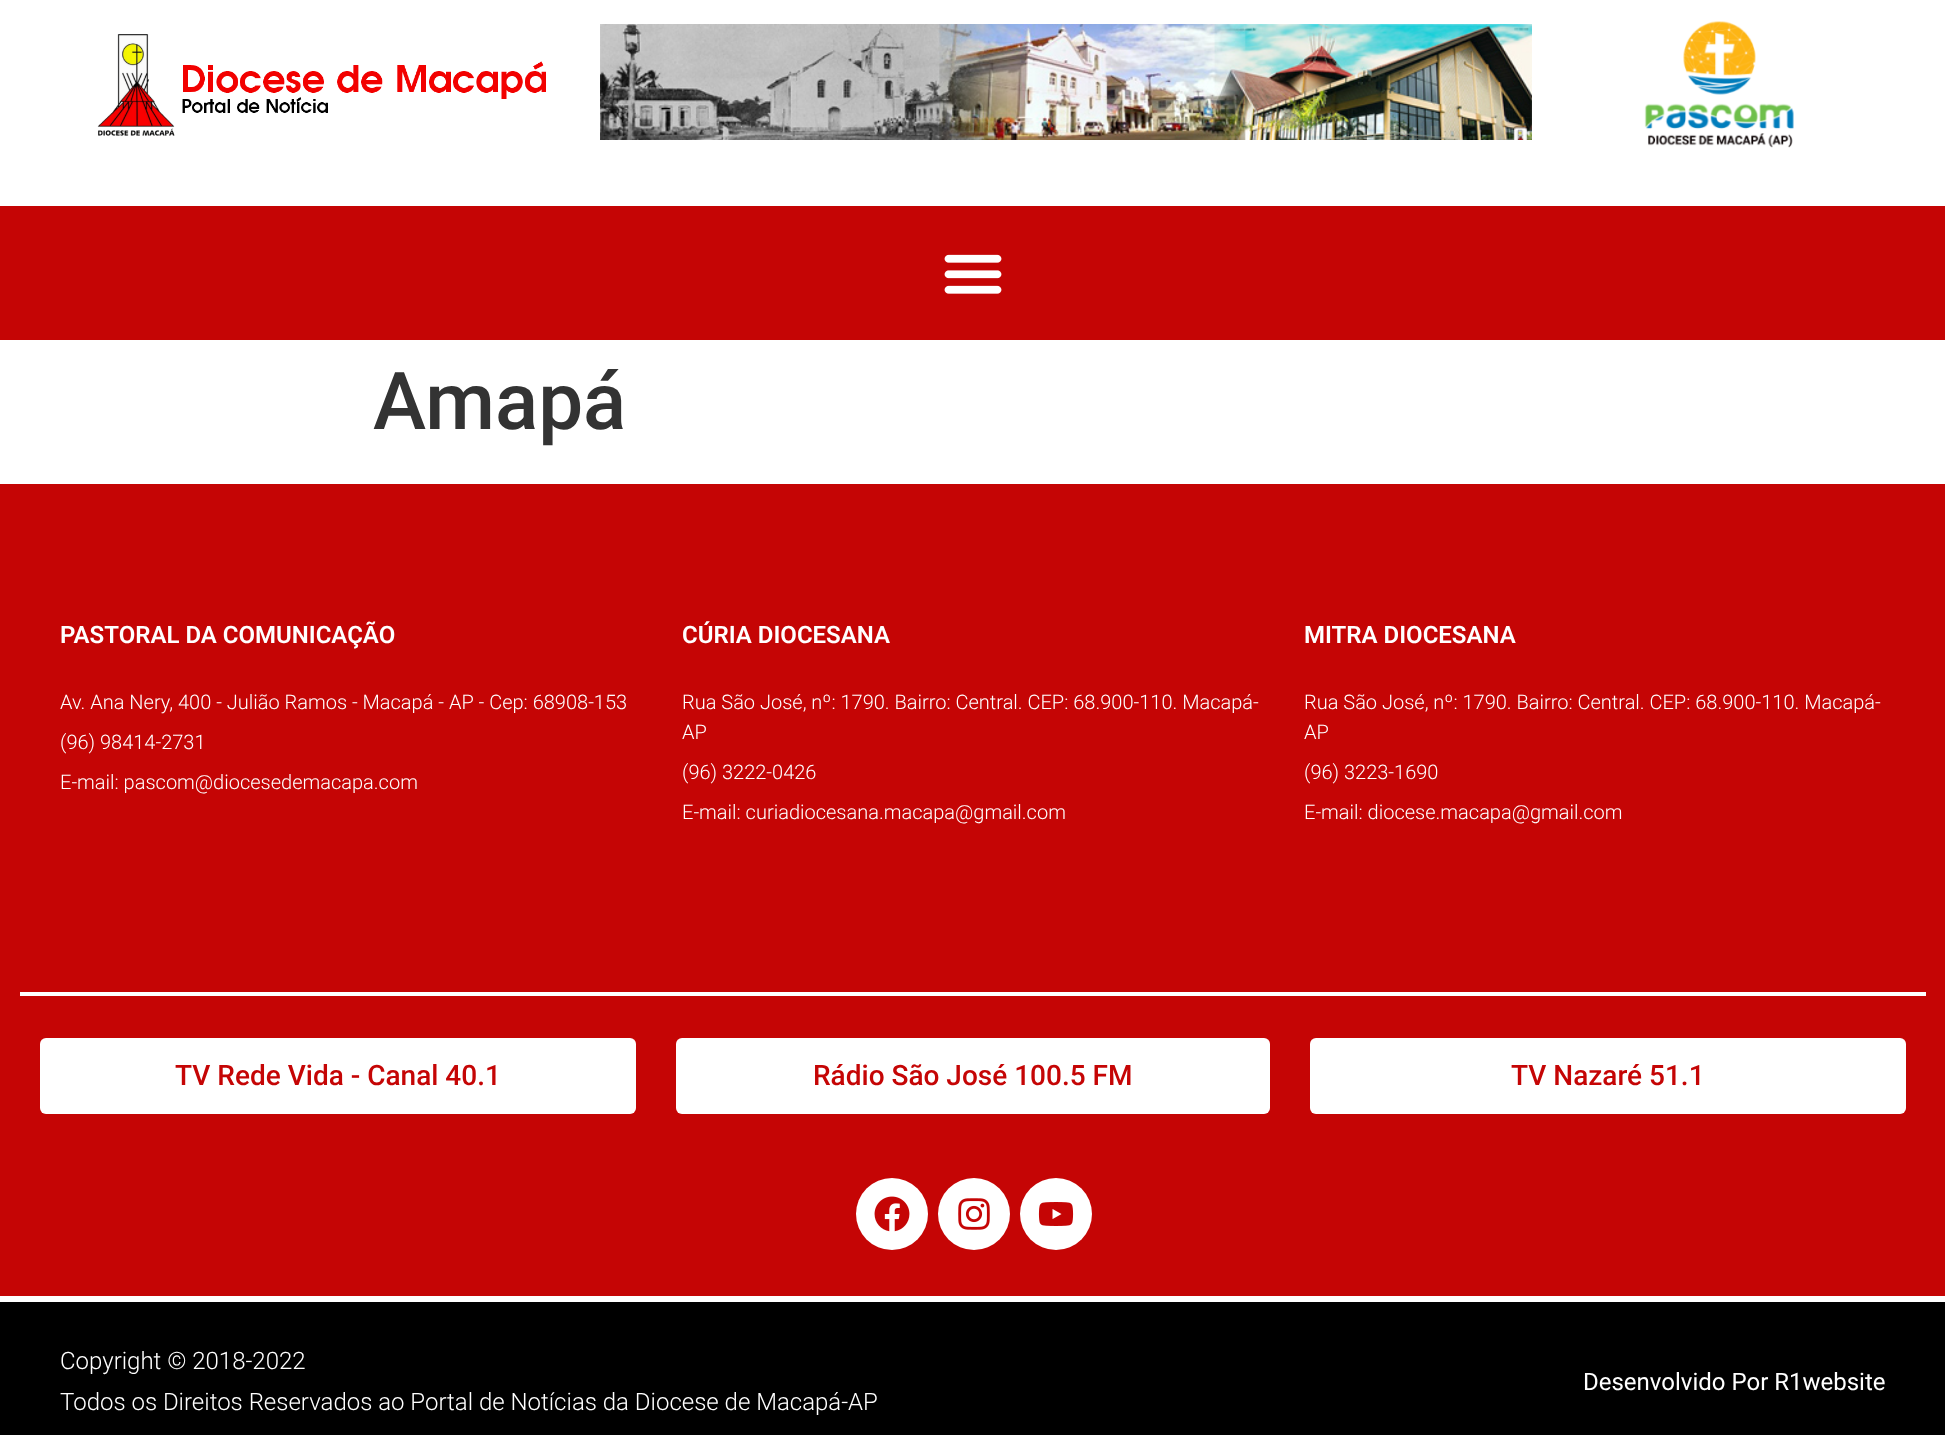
<!DOCTYPE html>
<meta charset="utf-8">
<style>body { margin: 0 } canvas { display: block }</style>
<canvas id="canvas" width="1945" height="1435"></canvas>
<img id="img1" src="img_01.png" hidden>
<img id="img2" src="img_02.png" hidden>
<img id="img3" src="img_03.png" hidden>
<img id="img4" src="img_04.png" hidden>
<img id="img5" src="img_05.png" hidden>
<img id="img6" src="img_06.png" hidden>
<img id="img7" src="img_07.png" hidden>
<script>
window.onload = function () {
	const canvas = document.getElementById("canvas");
	const ctx = canvas.getContext("2d");
	ctx.miterLimit = 4;
	ctx.fontKerning = "normal";
	function txt(s, x, y) {
		ctx.fillText(s, x, y);
	}
	function fill(x, y, w, h) {
		ctx.fillRect(x, y, w, h);
	}
	function round(x, y, w, h, r) {
		ctx.beginPath();
		ctx.roundRect(x, y, w, h, r);
		ctx.fill();
	}
	function img(id, x, y, w, h) {
		ctx.drawImage(document.getElementById(id), x, y, w, h);
	}

	ctx.fillStyle = "#FFFFFF";
	fill(0, 0, 1945, 1435);
	img("img1", 97, 34, 449, 102);
	img("img2", 600, 24, 932, 116);
	img("img3", 1644, 21, 150, 127);
	ctx.fillStyle = "#C50505";
	fill(0, 206, 1945, 134);
	img("img4", 944, 254, 58, 40);
	fill(0, 484, 1945, 812);
	ctx.fillStyle = "#FFFFFF";
	fill(20, 992, 1906, 4);
	round(40, 1038, 596, 76, 6);
	round(676, 1038, 594, 76, 6);
	round(1310, 1038, 596, 76, 6);
	ctx.beginPath();
	ctx.arc(892, 1214, 36, 0, Math.PI * 2);
	ctx.fill();
	img("img5", 874, 1196, 36, 36);
	ctx.beginPath();
	ctx.arc(974, 1214, 36, 0, Math.PI * 2);
	ctx.fill();
	img("img6", 958, 1198, 32, 32);
	ctx.beginPath();
	ctx.arc(1056, 1214, 36, 0, Math.PI * 2);
	ctx.fill();
	img("img7", 1038, 1202, 36, 24);
	ctx.fillStyle = "#000000";
	fill(0, 1302, 1945, 133);
	ctx.font = "500 80px Roboto";
	ctx.fillStyle = "#333333";
	txt("Amapá", 373, 429);
	ctx.font = "600 24px Roboto";
	ctx.fillStyle = "#FFFFFF";
	txt("PASTORAL DA COMUNICAÇÃO", 60, 643);
	ctx.font = "300 20px Roboto";
	txt("Av. Ana Nery, 400 - Julião Ramos - Macapá - AP - Cep: 68908-153", 60, 709);
	txt("(96) 98414-2731", 60, 749);
	txt("E-mail: pascom@diocesedemacapa.com", 60, 789);
	ctx.font = "600 24px Roboto";
	txt("CÚRIA DIOCESANA", 682, 643);
	ctx.font = "300 20px Roboto";
	txt("Rua São José, nº: 1790. Bairro: Central. CEP: 68.900-110. Macapá-", 682, 709);
	txt("AP", 682, 739);
	txt("(96) 3222-0426", 682, 779);
	txt("E-mail: curiadiocesana.macapa@gmail.com", 682, 819);
	ctx.font = "600 24px Roboto";
	txt("MITRA DIOCESANA", 1304, 643);
	ctx.font = "300 20px Roboto";
	txt("Rua São José, nº: 1790. Bairro: Central. CEP: 68.900-110. Macapá-", 1304, 709);
	txt("AP", 1304, 739);
	txt("(96) 3223-1690", 1304, 779);
	txt("E-mail: diocese.macapa@gmail.com", 1304, 819);
	ctx.font = "500 28px Roboto";
	ctx.fillStyle = "#C50505";
	txt("TV Rede Vida - Canal 40.1", 175, 1085);
	txt("Rádio São José 100.5 FM", 813, 1085);
	txt("TV Nazaré 51.1", 1511, 1085);
	ctx.font = "300 24px Roboto";
	ctx.fillStyle = "#FFFFFF";
	txt("Copyright © 2018-2022", 60, 1369);
	txt("Todos os Direitos Reservados ao Portal de Notícias da Diocese de Macapá-AP", 60, 1410);
	ctx.font = "24px Roboto";
	txt("Desenvolvido Por R1website", 1583, 1390);
};
</script>
